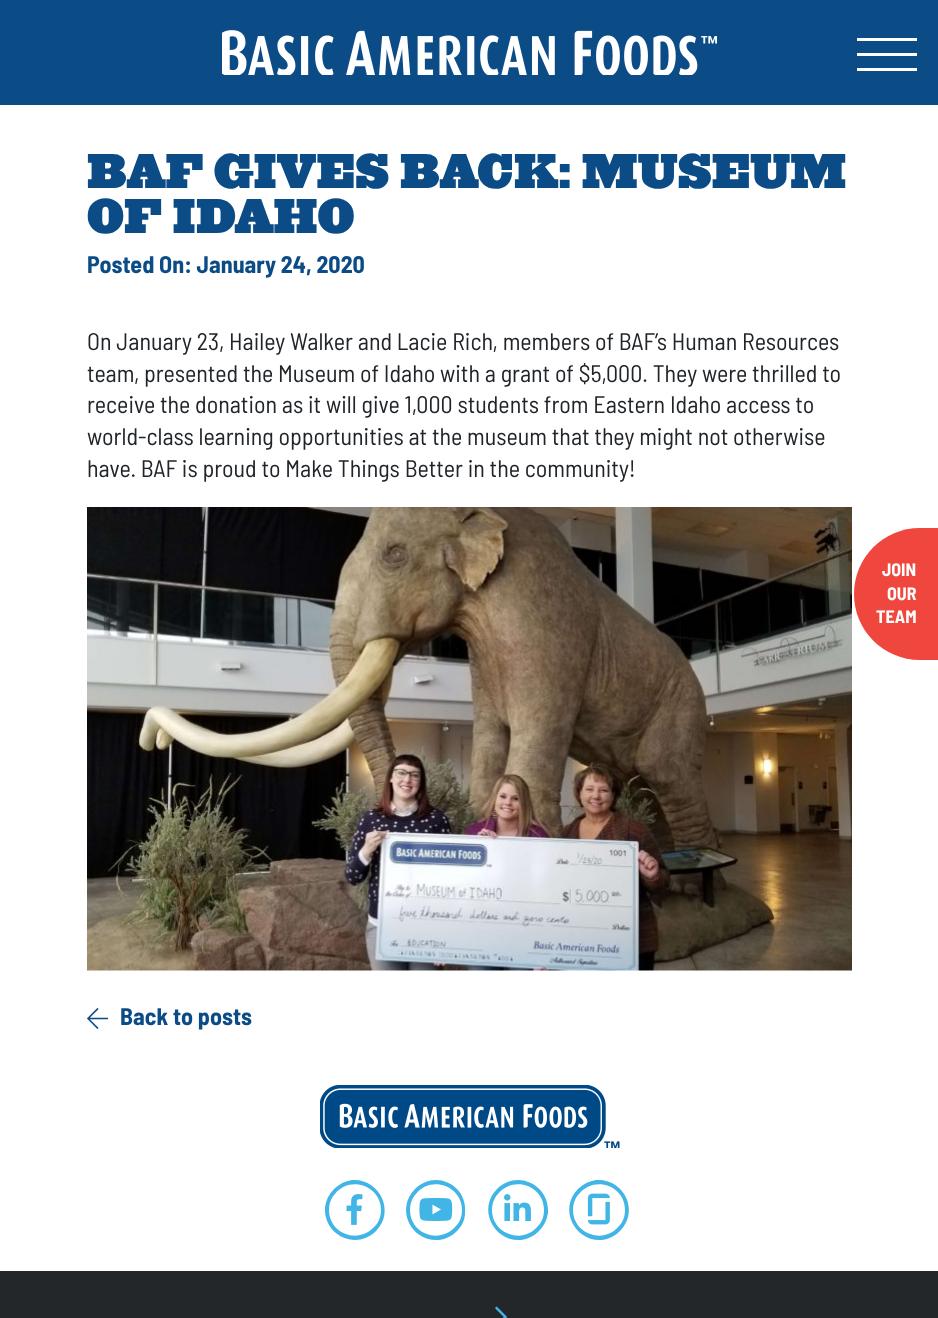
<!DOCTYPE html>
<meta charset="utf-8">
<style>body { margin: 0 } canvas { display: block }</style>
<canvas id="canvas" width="938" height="1318"></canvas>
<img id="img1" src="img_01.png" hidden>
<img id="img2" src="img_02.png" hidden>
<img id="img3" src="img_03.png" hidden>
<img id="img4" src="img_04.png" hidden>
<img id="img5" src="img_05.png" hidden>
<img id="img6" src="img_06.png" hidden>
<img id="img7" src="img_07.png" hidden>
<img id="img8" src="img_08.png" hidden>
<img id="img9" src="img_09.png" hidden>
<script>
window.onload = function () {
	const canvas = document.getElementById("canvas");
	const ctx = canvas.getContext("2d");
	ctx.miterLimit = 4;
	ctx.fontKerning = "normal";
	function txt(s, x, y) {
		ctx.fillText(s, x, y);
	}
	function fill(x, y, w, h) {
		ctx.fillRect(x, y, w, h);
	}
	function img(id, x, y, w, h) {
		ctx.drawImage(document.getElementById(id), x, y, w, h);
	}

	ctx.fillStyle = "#FFFFFF";
	fill(0, 0, 938, 1318);
	ctx.fillStyle = "#0B4C87";
	fill(0, 0, 938, 105);
	img("img1", 222, 30, 495, 45);
	ctx.fillStyle = "#FFFFFF";
	fill(857, 38, 60, 3);
	fill(857, 53, 60, 3);
	fill(857, 68, 60, 3);
	img("img2", 87, 507, 765, 464);
	img("img3", 87, 1008, 22, 21);
	ctx.fillStyle = "#EF473E";
	ctx.beginPath();
	ctx.moveTo(920, 528);
	ctx.lineTo(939, 528);
	ctx.lineTo(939, 660);
	ctx.lineTo(920, 660);
	ctx.bezierCurveTo(883.5, 660, 854, 630.5, 854, 594);
	ctx.bezierCurveTo(854, 557.5, 883.5, 528, 920, 528);
	ctx.closePath();
	ctx.fill();
	ctx.fillStyle = "#24272A";
	fill(0, 1271, 938, 47);
	img("img4", 320, 1085, 300, 63);
	ctx.fillStyle = "#40B5E6";
	ctx.beginPath();
	ctx.moveTo(334, 1189);
	ctx.bezierCurveTo(339, 1184, 345, 1181, 352, 1180);
	ctx.bezierCurveTo(379, 1178, 396, 1211, 376, 1231);
	ctx.bezierCurveTo(356, 1251, 323, 1235, 325, 1207);
	ctx.bezierCurveTo(326, 1200, 329, 1194, 334, 1189);
	ctx.closePath();
	ctx.moveTo(381, 1210);
	ctx.bezierCurveTo(381, 1186, 350, 1175, 335, 1194);
	ctx.bezierCurveTo(331, 1198, 329, 1204, 329, 1210);
	ctx.bezierCurveTo(329, 1234, 359, 1245, 375, 1226);
	ctx.bezierCurveTo(379, 1222, 381, 1216, 381, 1210);
	ctx.closePath();
	ctx.fill();
	img("img5", 346, 1194, 17, 31);
	ctx.beginPath();
	ctx.moveTo(415, 1189);
	ctx.bezierCurveTo(435, 1169, 468, 1185, 465, 1213);
	ctx.bezierCurveTo(465, 1220, 462, 1226, 457, 1231);
	ctx.bezierCurveTo(452, 1236, 446, 1239, 439, 1240);
	ctx.bezierCurveTo(411, 1242, 395, 1209, 415, 1189);
	ctx.closePath();
	ctx.moveTo(462, 1210);
	ctx.bezierCurveTo(462, 1186, 431, 1175, 416, 1194);
	ctx.bezierCurveTo(412, 1198, 410, 1204, 410, 1210);
	ctx.bezierCurveTo(410, 1234, 440, 1245, 456, 1226);
	ctx.bezierCurveTo(460, 1222, 462, 1216, 462, 1210);
	ctx.closePath();
	ctx.fill();
	img("img6", 419, 1197, 34, 24);
	ctx.beginPath();
	ctx.moveTo(497, 1189);
	ctx.bezierCurveTo(517, 1169, 550, 1185, 548, 1213);
	ctx.bezierCurveTo(547, 1220, 544, 1226, 539, 1231);
	ctx.bezierCurveTo(534, 1236, 528, 1239, 521, 1240);
	ctx.bezierCurveTo(494, 1242, 477, 1209, 497, 1189);
	ctx.closePath();
	ctx.moveTo(544, 1210);
	ctx.bezierCurveTo(544, 1186, 514, 1175, 498, 1194);
	ctx.bezierCurveTo(494, 1198, 492, 1204, 492, 1210);
	ctx.bezierCurveTo(492, 1234, 523, 1245, 538, 1226);
	ctx.bezierCurveTo(542, 1222, 544, 1216, 544, 1210);
	ctx.closePath();
	ctx.fill();
	img("img7", 504, 1194, 27, 27);
	ctx.beginPath();
	ctx.moveTo(578, 1189);
	ctx.bezierCurveTo(583, 1184, 589, 1181, 596, 1180);
	ctx.bezierCurveTo(624, 1178, 640, 1211, 620, 1231);
	ctx.bezierCurveTo(615, 1236, 609, 1239, 602, 1240);
	ctx.bezierCurveTo(575, 1242, 558, 1209, 578, 1189);
	ctx.closePath();
	ctx.moveTo(625, 1210);
	ctx.bezierCurveTo(625, 1186, 595, 1175, 579, 1194);
	ctx.bezierCurveTo(575, 1198, 573, 1204, 573, 1210);
	ctx.bezierCurveTo(573, 1234, 604, 1245, 619, 1226);
	ctx.bezierCurveTo(623, 1222, 625, 1216, 625, 1210);
	ctx.closePath();
	ctx.fill();
	img("img8", 587, 1193, 23, 32);
	img("img9", 495, 1306, 12, 12);
	ctx.font = "900 45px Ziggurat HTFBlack";
	ctx.fillStyle = "#0B4C87";
	txt("BAF GIVES BACK: MUSEUM", 87, 188);
	txt("OF IDAHO", 87, 233);
	ctx.font = "bold 24px Barlow Semi Condensed";
	txt("Posted On: January 24, 2020", 87, 273);
	ctx.font = "24px Barlow Semi Condensed";
	ctx.fillStyle = "#212529";
	txt("On January 23, Hailey Walker and Lacie Rich, members of BAF’s Human Resources", 87, 350);
	txt("team, presented the Museum of Idaho with a grant of $5,000. They were thrilled to", 87, 382);
	txt("receive the donation as it will give 1,000 students from Eastern Idaho access to", 87, 413);
	txt("world-class learning opportunities at the museum that they might not otherwise", 87, 445);
	txt("have. BAF is proud to Make Things Better in the community!", 87, 477);
	ctx.font = "bold 24px Barlow Semi Condensed";
	ctx.fillStyle = "#0B4C87";
	txt("Back to posts", 120, 1025);
	ctx.font = "bold 18px Barlow Semi Condensed";
	ctx.fillStyle = "#FFFFFF";
	txt("JOIN", 882, 576);
	txt("OUR", 887, 600);
	txt("TEAM", 876, 623);
};
</script>
